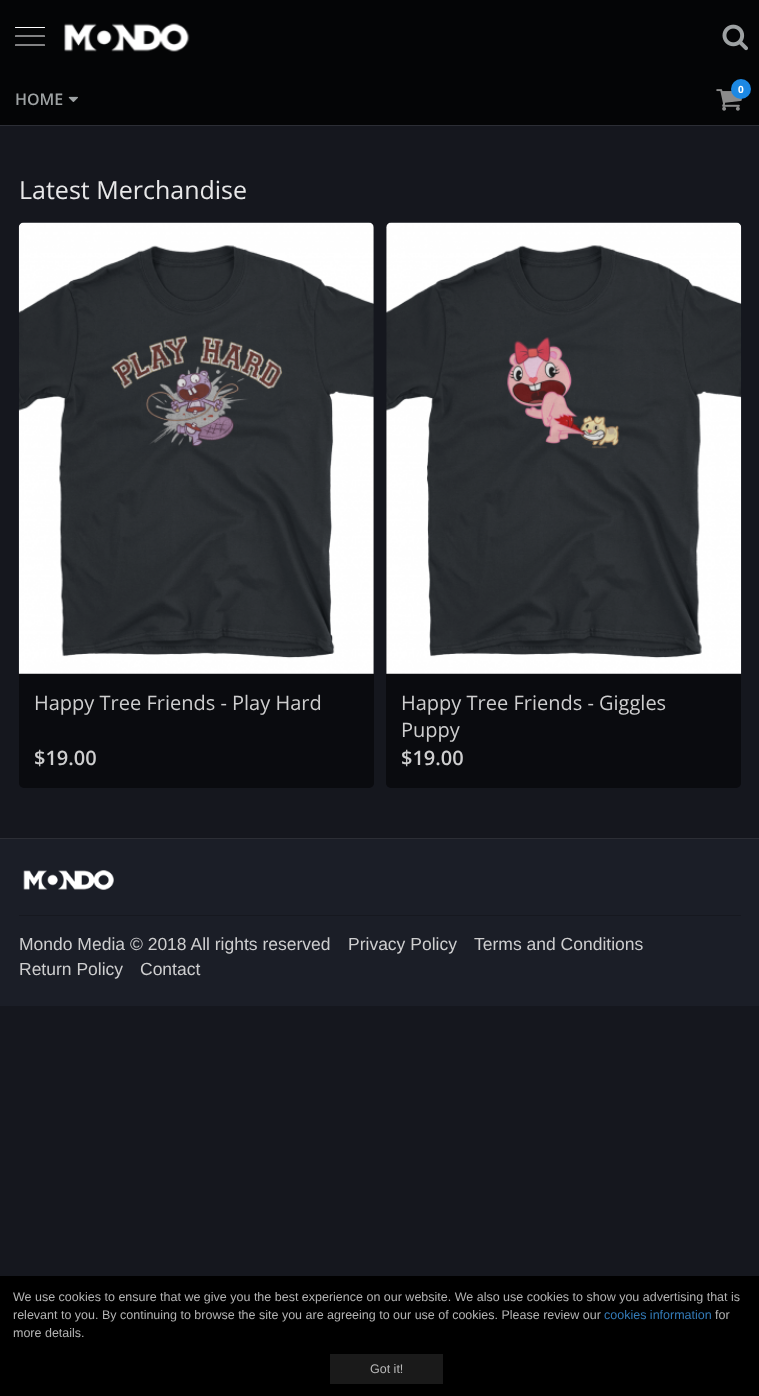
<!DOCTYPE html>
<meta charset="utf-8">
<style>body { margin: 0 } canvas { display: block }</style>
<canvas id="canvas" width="759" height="1396"></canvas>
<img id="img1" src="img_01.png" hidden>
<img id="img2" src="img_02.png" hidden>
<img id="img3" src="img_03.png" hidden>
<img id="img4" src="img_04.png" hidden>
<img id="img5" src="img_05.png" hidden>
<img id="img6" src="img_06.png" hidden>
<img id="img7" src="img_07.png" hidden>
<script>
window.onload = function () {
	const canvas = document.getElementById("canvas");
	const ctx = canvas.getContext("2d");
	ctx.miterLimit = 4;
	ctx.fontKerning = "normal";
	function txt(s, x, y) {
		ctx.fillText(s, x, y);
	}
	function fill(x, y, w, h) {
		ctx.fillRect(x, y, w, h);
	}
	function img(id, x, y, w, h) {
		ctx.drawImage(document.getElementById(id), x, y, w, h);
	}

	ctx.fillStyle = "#15171E";
	fill(0, 0, 759, 1396);
	ctx.fillStyle = "#040506";
	fill(0, 0, 759, 125);
	ctx.beginPath();
	ctx.moveTo(15.5, 27.5);
	ctx.lineTo(44.5, 27.5);
	ctx.moveTo(15.5, 36);
	ctx.lineTo(44.5, 36);
	ctx.moveTo(15.5, 45);
	ctx.lineTo(44.5, 45);
	ctx.strokeStyle = "#FFFFFF";
	ctx.lineWidth = 1.2;
	ctx.lineCap = "round";
	ctx.lineJoin = "round";
	ctx.stroke();
	img("img1", 64, 23, 126, 29);
	img("img2", 722, 24, 26, 27);
	img("img3", 716, 89, 26, 22);
	ctx.fillStyle = "#1C88E3";
	ctx.beginPath();
	ctx.arc(741, 89, 10, 0, Math.PI * 2);
	ctx.fill();
	img("img4", 68, 96, 10, 6);
	ctx.fillStyle = "#2C2E35";
	fill(0, 125, 759, 1);
	fill(0, 838, 759, 1);
	img("img5", 18, 222, 356, 452);
	ctx.fillStyle = "#0A0B0F";
	ctx.beginPath();
	ctx.roundRect(19, 674, 355, 114, [0, 0, 5, 5]);
	ctx.fill();
	img("img6", 386, 222, 356, 452);
	ctx.beginPath();
	ctx.roundRect(386, 674, 355, 114, [0, 0, 5, 5]);
	ctx.fill();
	ctx.fillStyle = "#1B1E27";
	fill(0, 839, 759, 167);
	ctx.fillStyle = "#16181F";
	fill(19, 915, 722, 1);
	img("img7", 23, 870, 91, 20);
	ctx.fillStyle = "#000000";
	fill(0, 1276, 759, 120);
	ctx.fillStyle = "#1A1A1A";
	fill(330, 1354, 113, 30);
	ctx.font = "bold 10px Open Sans";
	ctx.fillStyle = "#FFFFFF";
	txt("0", 738, 93);
	ctx.font = "600 16px Open Sans";
	ctx.fillStyle = "#9EA2A3";
	txt("HOME", 15, 105);
	ctx.font = "25px Open Sans";
	ctx.fillStyle = "#E8E8E9";
	txt("Latest Merchandise", 19, 199);
	ctx.font = "20px Open Sans";
	ctx.fillStyle = "#CECECF";
	txt("Happy Tree Friends - Play Hard", 34, 710);
	ctx.font = "600 20px Open Sans";
	txt("$19.00", 34, 765);
	ctx.font = "20px Open Sans";
	txt("Happy Tree Friends - Giggles", 401, 710);
	txt("Puppy", 401, 737);
	ctx.font = "600 20px Open Sans";
	txt("$19.00", 401, 765);
	ctx.font = "17.5px Liberation Sans";
	txt("Mondo Media © 2018 All rights reserved", 19, 950);
	txt("Privacy Policy", 348, 950);
	txt("Terms and Conditions", 474, 950);
	txt("Return Policy", 19, 975);
	txt("Contact", 140, 975);
	ctx.font = "12.5px Liberation Sans";
	ctx.fillStyle = "#B3B3B3";
	txt("We use cookies to ensure that we give you the best experience on our website. We also use cookies to show you advertising that is", 13, 1301);
	txt("relevant to you. By continuing to browse the site you are agreeing to our use of cookies. Please review our", 13, 1319);
	ctx.fillStyle = "#337AB7";
	txt("cookies information", 604, 1319);
	ctx.fillStyle = "#B3B3B3";
	txt("for", 715, 1319);
	txt("more details.", 13, 1337);
	ctx.fillStyle = "#BABABA";
	txt("Got it!", 370, 1373);
};
</script>
